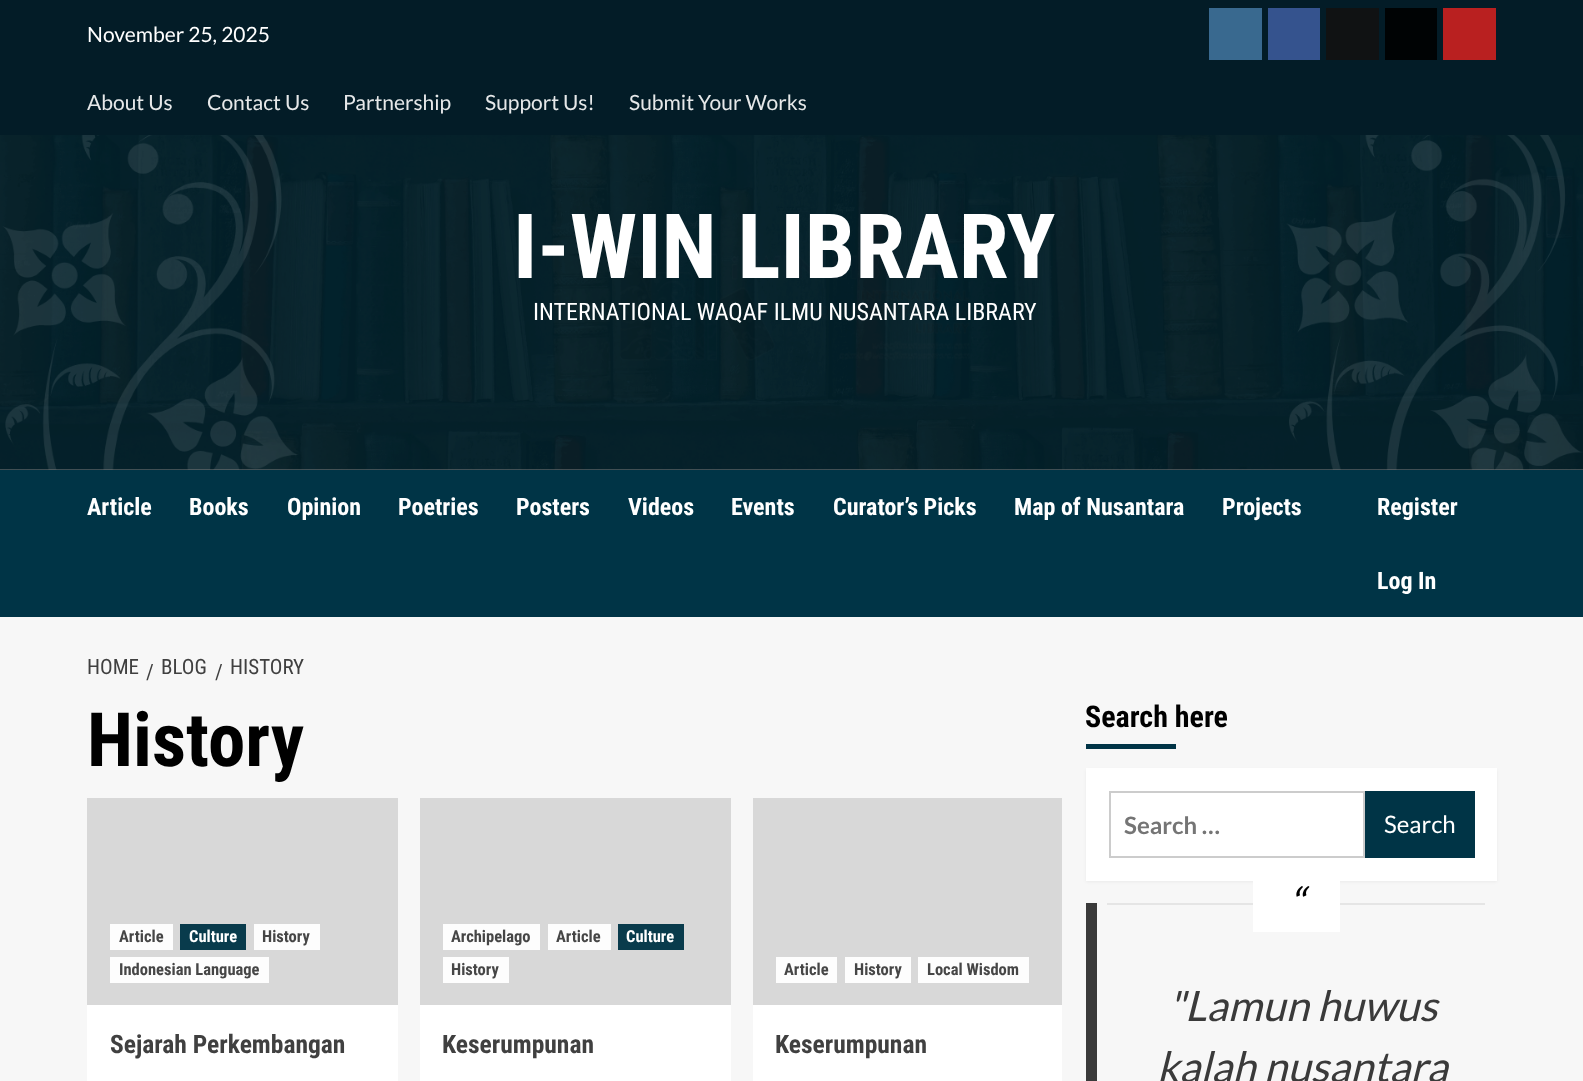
<!DOCTYPE html>
<meta charset="utf-8">
<style>body { margin: 0 } canvas { display: block }</style>
<canvas id="canvas" width="1583" height="1081"></canvas>
<img id="img1" src="img_01.png" hidden>
<script>
window.onload = function () {
	const canvas = document.getElementById("canvas");
	const ctx = canvas.getContext("2d");
	ctx.miterLimit = 4;
	ctx.fontKerning = "normal";
	function txt(s, x, y) {
		ctx.fillText(s, x, y);
	}
	function fill(x, y, w, h) {
		ctx.fillRect(x, y, w, h);
	}
	function img(id, x, y, w, h) {
		ctx.drawImage(document.getElementById(id), x, y, w, h);
	}

	ctx.fillStyle = "#F7F7F7";
	fill(0, 0, 1583, 1081);
	ctx.fillStyle = "#7C7C7C";
	fill(0, 469, 1583, 1);
	ctx.fillStyle = "#031C27";
	fill(0, 0, 1583, 135);
	ctx.fillStyle = "#39698F";
	fill(1209, 8, 53, 52);
	ctx.fillStyle = "#35538E";
	fill(1268, 8, 52, 52);
	ctx.fillStyle = "#101213";
	fill(1326, 8, 53, 52);
	ctx.fillStyle = "#000304";
	fill(1385, 8, 52, 52);
	ctx.fillStyle = "#B92020";
	fill(1443, 8, 53, 52);
	img("img1", 0, 135, 1583, 335);
	ctx.fillStyle = "#003446";
	fill(0, 470, 1583, 147);
	ctx.fillStyle = "#FFFFFF";
	fill(87, 1005, 311, 76);
	ctx.fillStyle = "#D8D8D8";
	fill(87, 798, 311, 207);
	ctx.fillStyle = "#FDFDFD";
	fill(110, 924, 63, 26);
	ctx.fillStyle = "#093B4C";
	fill(180, 924, 66, 26);
	ctx.fillStyle = "#FDFDFD";
	fill(254, 924, 66, 26);
	fill(110, 957, 159, 26);
	ctx.fillStyle = "#FFFFFF";
	fill(420, 1005, 311, 76);
	ctx.fillStyle = "#D8D8D8";
	fill(420, 798, 311, 207);
	ctx.fillStyle = "#FDFDFD";
	fill(443, 924, 97, 26);
	fill(548, 924, 63, 26);
	ctx.fillStyle = "#093B4C";
	fill(618, 924, 66, 26);
	ctx.fillStyle = "#FDFDFD";
	fill(443, 957, 66, 26);
	ctx.fillStyle = "#FFFFFF";
	fill(753, 1005, 309, 76);
	ctx.fillStyle = "#D8D8D8";
	fill(753, 798, 309, 207);
	ctx.fillStyle = "#FDFDFD";
	fill(776, 957, 61, 26);
	fill(845, 957, 66, 26);
	fill(918, 957, 111, 26);
	ctx.fillStyle = "#003446";
	fill(1086, 744, 90, 5);
	ctx.fillStyle = "rgba(0, 0, 0, 0.05)";
	ctx.filter = "blur(1.5px)";
	ctx.beginPath();
	ctx.rect(1086, 770, 411, 112);
	ctx.fill();
	ctx.filter = "none";
	ctx.fillStyle = "#FFFFFF";
	fill(1086, 768, 411, 113);
	ctx.strokeStyle = "#CCCCCC";
	ctx.lineWidth = 2;
	ctx.strokeRect(1110, 792, 254, 65);
	ctx.fillStyle = "#003446";
	fill(1365, 791, 110, 67);
	ctx.fillStyle = "#3A3A3A";
	fill(1086, 903, 11, 178);
	ctx.fillStyle = "#E5E5E5";
	fill(1107, 903, 378, 2);
	ctx.fillStyle = "#FFFFFF";
	fill(1253, 881, 87, 51);
	ctx.font = "21px Lato";
	txt("November 25, 2025", 87, 42);
	ctx.fillStyle = "#E6E8E9";
	txt("About Us", 87, 110);
	txt("Contact Us", 207, 110);
	txt("Partnership", 343, 110);
	txt("Support Us!", 485, 110);
	txt("Submit Your Works", 629, 110);
	ctx.font = "bold 90px Roboto Condensed";
	ctx.fillStyle = "#FFFFFF";
	txt("I-WIN LIBRARY", 513, 278);
	ctx.font = "24px Roboto Condensed";
	txt("INTERNATIONAL WAQAF ILMU NUSANTARA LIBRARY", 533, 320);
	ctx.font = "bold 24px Roboto Condensed";
	txt("Article", 87, 515);
	txt("Books", 189, 515);
	txt("Opinion", 287, 515);
	txt("Poetries", 398, 515);
	txt("Posters", 516, 515);
	txt("Videos", 628, 515);
	txt("Events", 731, 515);
	txt("Curator’s Picks", 833, 515);
	txt("Map of Nusantara", 1014, 515);
	txt("Projects", 1222, 515);
	txt("Register", 1377, 515);
	txt("Log In", 1377, 589);
	ctx.font = "21px Roboto Condensed";
	ctx.fillStyle = "#404040";
	txt("HOME", 87, 674);
	txt("/", 146, 679);
	txt("BLOG", 161, 674);
	txt("/", 215, 679);
	txt("HISTORY", 230, 674);
	ctx.font = "bold 75px Roboto Condensed";
	ctx.fillStyle = "#000000";
	txt("History", 87, 766);
	ctx.font = "bold 16.5px Roboto Condensed";
	ctx.fillStyle = "#464646";
	txt("Article", 119, 942);
	ctx.fillStyle = "#FFFFFF";
	txt("Culture", 189, 942);
	ctx.fillStyle = "#464646";
	txt("History", 262, 942);
	txt("Indonesian Language", 119, 975);
	ctx.font = "bold 25.5px Roboto Condensed";
	ctx.fillStyle = "#404040";
	txt("Sejarah Perkembangan", 110, 1053);
	ctx.font = "bold 16.5px Roboto Condensed";
	ctx.fillStyle = "#464646";
	txt("Archipelago", 451, 942);
	txt("Article", 556, 942);
	ctx.fillStyle = "#FFFFFF";
	txt("Culture", 626, 942);
	ctx.fillStyle = "#464646";
	txt("History", 451, 975);
	ctx.font = "bold 25.5px Roboto Condensed";
	ctx.fillStyle = "#404040";
	txt("Keserumpunan", 442, 1053);
	ctx.font = "bold 16.5px Roboto Condensed";
	ctx.fillStyle = "#464646";
	txt("Article", 784, 975);
	txt("History", 854, 975);
	txt("Local Wisdom", 927, 975);
	ctx.font = "bold 25.5px Roboto Condensed";
	ctx.fillStyle = "#404040";
	txt("Keserumpunan", 775, 1053);
	ctx.font = "bold 30px Roboto Condensed";
	ctx.fillStyle = "#000000";
	txt("Search here", 1085, 727);
	ctx.font = "bold 24px Lato";
	ctx.fillStyle = "#757575";
	txt("Search …", 1124, 834);
	ctx.font = "24px Lato";
	ctx.fillStyle = "#FFFFFF";
	txt("Search", 1384, 833);
	ctx.font = "italic 42px Lato";
	ctx.fillStyle = "#000000";
	txt("“", 1289, 918);
	ctx.fillStyle = "#3A3A3A";
	txt("\"Lamun huwus", 1168, 1021);
	txt("kalah nusantara", 1157, 1082);
};
</script>
